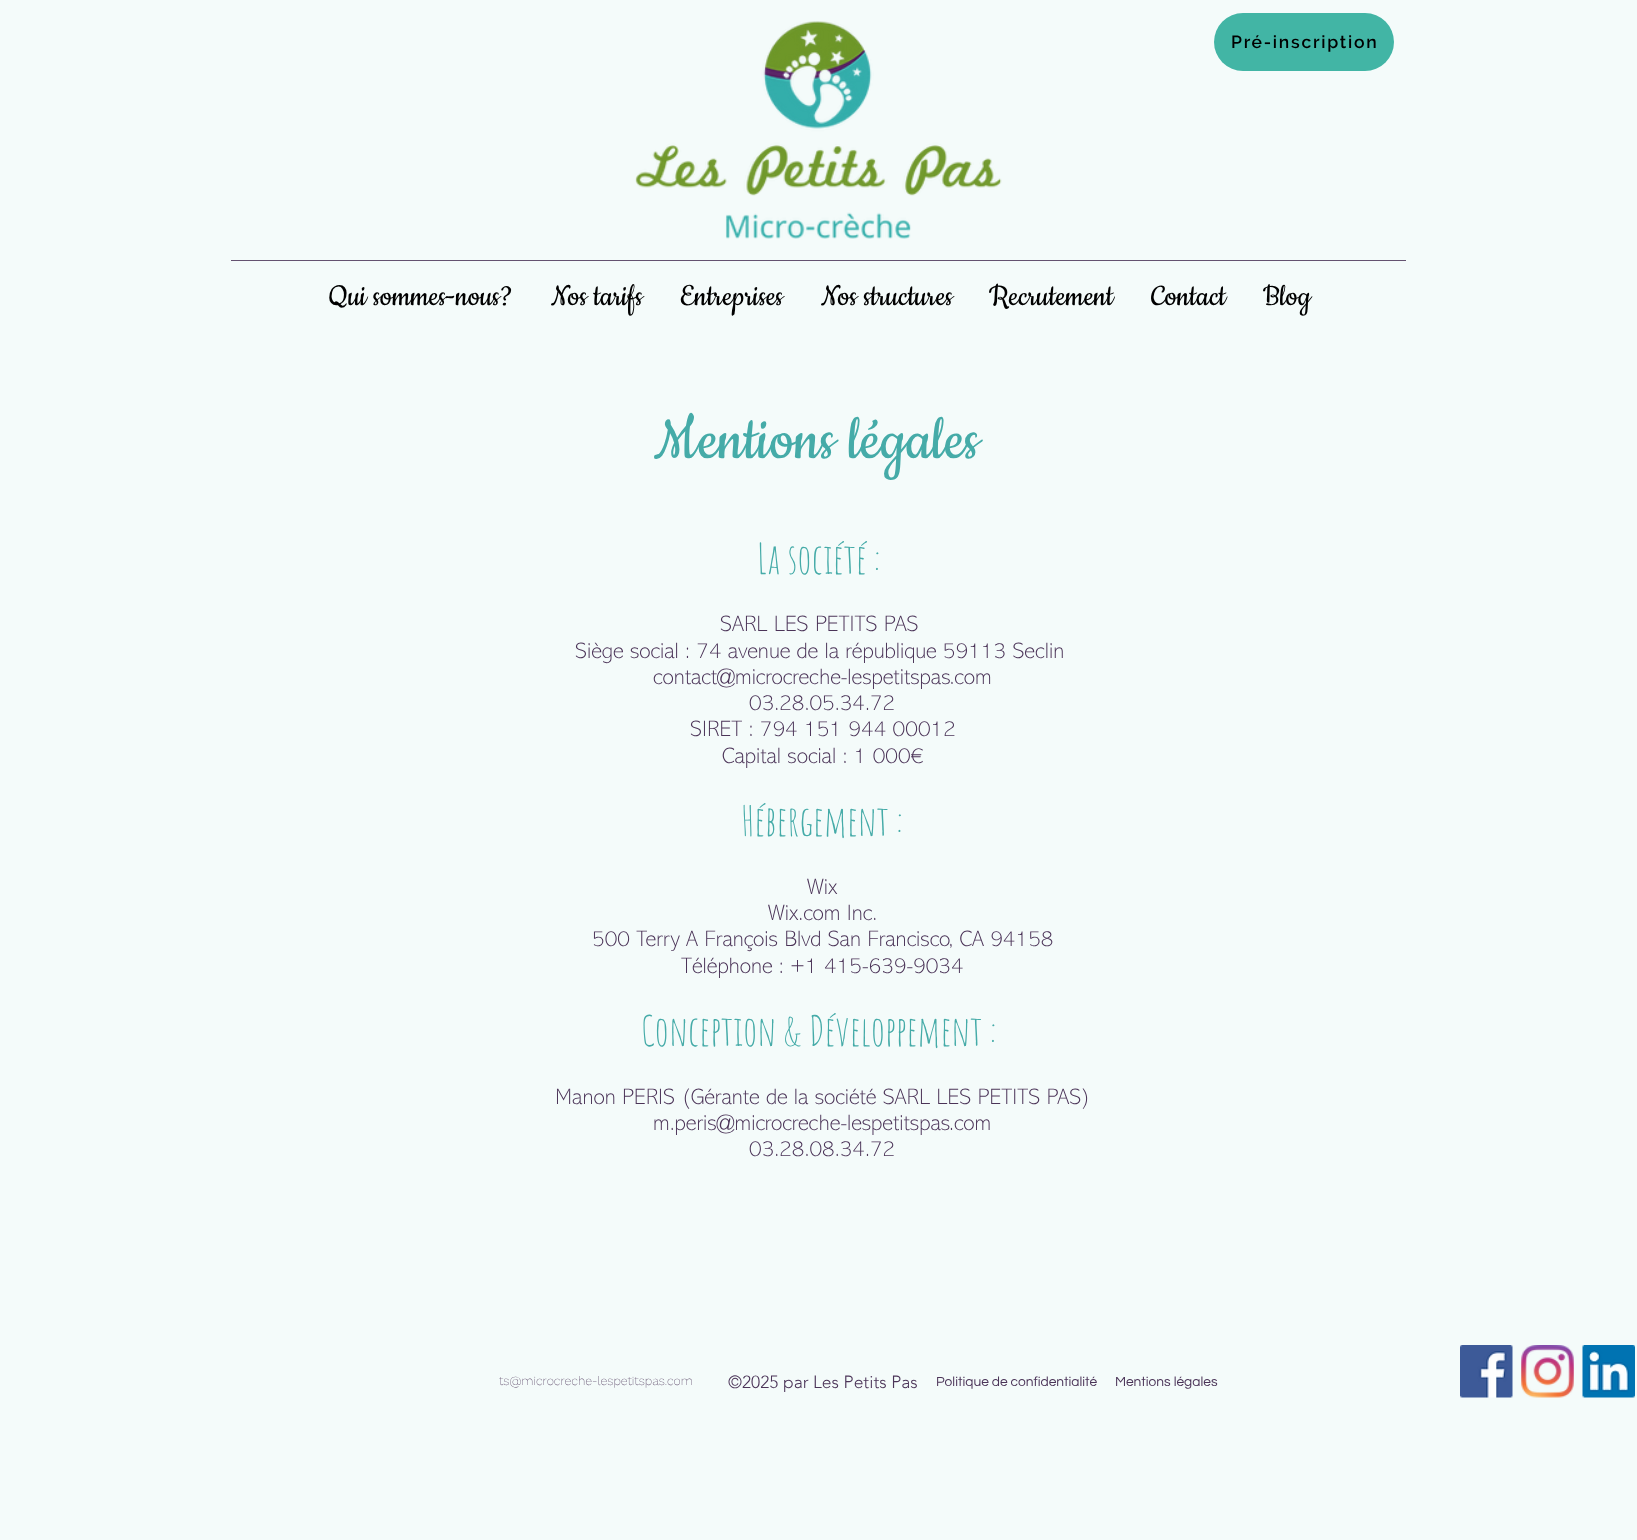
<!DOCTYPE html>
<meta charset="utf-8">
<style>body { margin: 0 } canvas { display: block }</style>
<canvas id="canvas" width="1637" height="1540"></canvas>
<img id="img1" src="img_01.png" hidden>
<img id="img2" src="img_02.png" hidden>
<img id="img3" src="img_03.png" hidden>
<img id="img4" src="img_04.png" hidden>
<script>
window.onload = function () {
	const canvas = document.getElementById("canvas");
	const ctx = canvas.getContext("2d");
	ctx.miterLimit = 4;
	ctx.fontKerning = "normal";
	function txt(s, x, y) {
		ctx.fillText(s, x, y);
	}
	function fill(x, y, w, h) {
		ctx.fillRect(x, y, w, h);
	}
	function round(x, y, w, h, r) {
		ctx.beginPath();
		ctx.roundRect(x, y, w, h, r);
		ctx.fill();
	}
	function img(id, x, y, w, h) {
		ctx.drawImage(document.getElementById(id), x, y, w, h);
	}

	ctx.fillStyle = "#F4FBFA";
	fill(0, 0, 1637, 1540);
	img("img1", 635, 21, 367, 218);
	ctx.fillStyle = "#42B5A5";
	round(1214, 13, 180, 58, 29);
	ctx.fillStyle = "#645270";
	fill(231, 260, 1175, 1);
	img("img2", 1460, 1345, 53, 53);
	img("img3", 1521, 1345, 53, 53);
	img("img4", 1582, 1345, 53, 53);
	ctx.letterSpacing = "1.75px";
	ctx.font = "600 17.5px Raleway";
	ctx.fillStyle = "#000000";
	txt("Pré-inscription", 1231, 48);
	ctx.letterSpacing = "0px";
	ctx.font = "33.75px Cookie";
	txt("Qui sommes-nous?", 328, 305);
	txt("Nos tarifs", 551, 305);
	txt("Entreprises", 680, 305);
	txt("Nos structures", 821, 305);
	txt("Recrutement", 989, 305);
	txt("Contact", 1151, 305);
	txt("Blog", 1263, 305);
	ctx.font = "68.75px Cookie";
	ctx.fillStyle = "#45ABA8";
	txt("Mentions légales", 654, 458);
	ctx.font = "41.25px Amatic SC";
	txt("La société :", 757, 574);
	ctx.font = "200 22.5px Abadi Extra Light";
	ctx.fillStyle = "#4B3458";
	txt("SARL LES PETITS PAS", 720, 631);
	txt("Siège social : 74 avenue de la république 59113 Seclin", 575, 658);
	txt("contact@microcreche-lespetitspas.com", 653, 684);
	txt("03.28.05.34.72", 749, 710);
	txt("SIRET : 794 151 944 00012", 690, 736);
	txt("Capital social : 1 000€", 722, 763);
	ctx.font = "41.25px Amatic SC";
	ctx.fillStyle = "#45ABA8";
	txt("Hébergement :", 741, 836);
	ctx.font = "200 22.5px Abadi Extra Light";
	ctx.fillStyle = "#4B3458";
	txt("Wix", 807, 894);
	txt("Wix.com Inc.", 768, 920);
	txt("500 Terry A François Blvd San Francisco, CA 94158", 592, 946);
	txt("Téléphone : +1 415-639-9034", 681, 973);
	ctx.font = "41.25px Amatic SC";
	ctx.fillStyle = "#45ABA8";
	txt("Conception & Développement :", 641, 1046);
	ctx.font = "200 22.5px Abadi Extra Light";
	ctx.fillStyle = "#4B3458";
	txt("Manon PERIS (Gérante de la société SARL LES PETITS PAS)", 555, 1104);
	txt("m.peris@microcreche-lespetitspas.com", 653, 1130);
	txt("03.28.08.34.72", 749, 1156);
	ctx.font = "200 12.5px Work Sans";
	txt("ts@microcreche-lespetitspas.com", 499, 1385);
	ctx.font = "300 17.5px 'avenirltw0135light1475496'";
	txt("©2025 par Les Petits Pas", 728, 1388);
	ctx.font = "13.75px Questrial";
	txt("Politique de confidentialité", 936, 1386);
	txt("Mentions légales", 1115, 1386);
};
</script>
